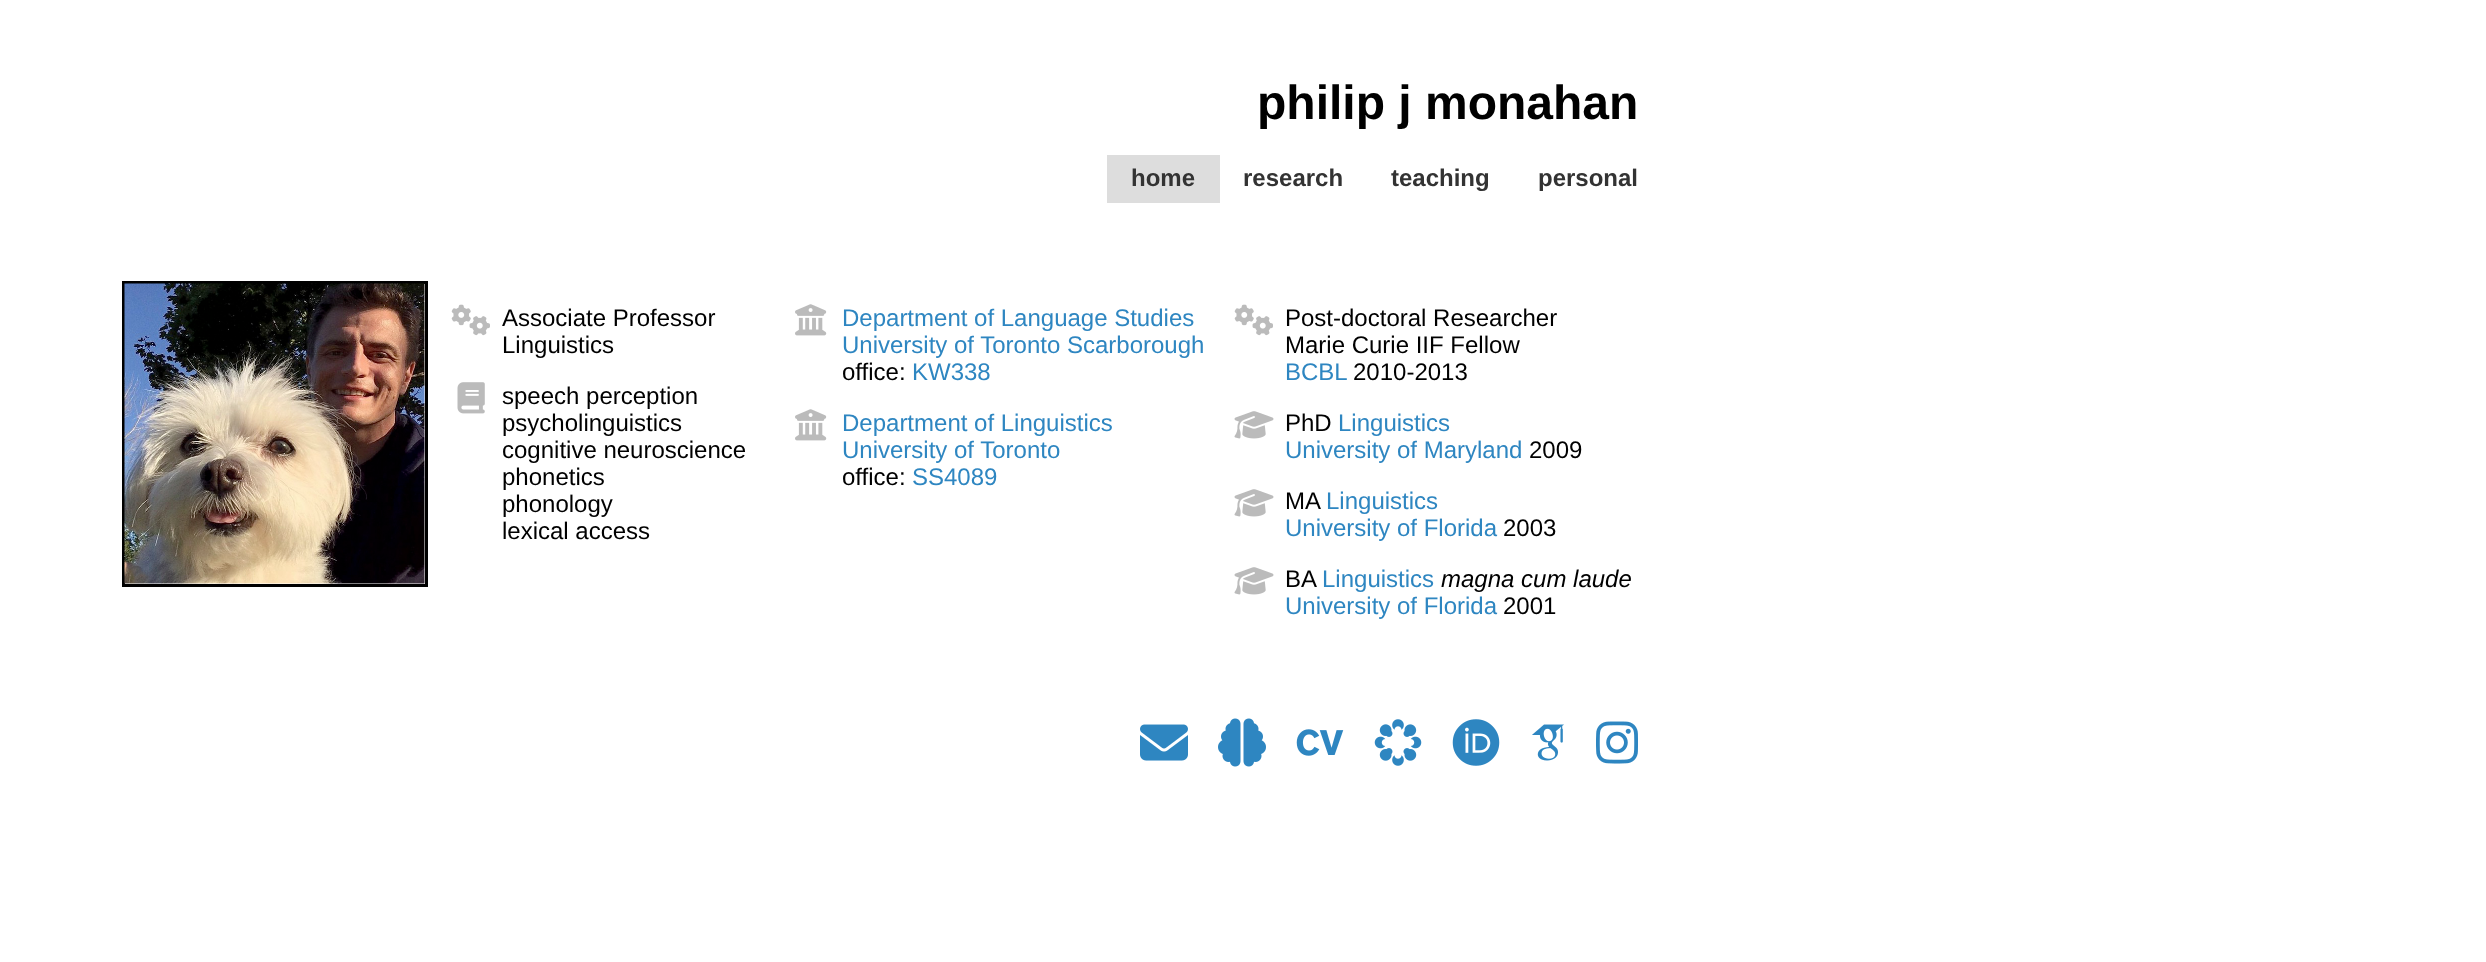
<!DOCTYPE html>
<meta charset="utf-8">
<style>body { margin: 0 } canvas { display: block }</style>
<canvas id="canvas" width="2486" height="962"></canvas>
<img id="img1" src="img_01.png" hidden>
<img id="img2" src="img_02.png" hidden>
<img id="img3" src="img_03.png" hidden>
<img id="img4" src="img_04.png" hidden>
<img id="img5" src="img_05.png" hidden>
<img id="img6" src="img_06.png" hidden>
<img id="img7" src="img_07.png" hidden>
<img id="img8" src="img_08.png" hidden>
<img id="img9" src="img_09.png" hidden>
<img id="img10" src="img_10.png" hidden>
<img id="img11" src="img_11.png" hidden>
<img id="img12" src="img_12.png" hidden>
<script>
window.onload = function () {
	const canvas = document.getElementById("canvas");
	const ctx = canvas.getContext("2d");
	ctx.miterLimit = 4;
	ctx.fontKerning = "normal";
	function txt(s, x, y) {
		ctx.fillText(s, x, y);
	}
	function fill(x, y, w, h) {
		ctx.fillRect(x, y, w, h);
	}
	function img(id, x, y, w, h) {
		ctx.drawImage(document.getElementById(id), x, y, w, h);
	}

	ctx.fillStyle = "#FFFFFF";
	fill(0, 0, 2486, 962);
	ctx.fillStyle = "#DDDDDD";
	fill(1107, 155, 113, 48);
	ctx.strokeStyle = "#000000";
	ctx.lineWidth = 3;
	ctx.strokeRect(123.5, 282.5, 303, 303);
	img("img1", 124, 283, 301, 301);
	img("img2", 451, 304, 39, 32);
	img("img3", 457, 382, 28, 32);
	img("img4", 795, 304, 32, 32);
	img("img4", 795, 409, 32, 32);
	img("img2", 1234, 304, 39, 32);
	img("img5", 1234, 411, 40, 28);
	img("img5", 1234, 489, 40, 28);
	img("img5", 1234, 567, 40, 28);
	img("img6", 1140, 724, 48, 37);
	img("img7", 1218, 718, 48, 49);
	img("img8", 1296, 729, 48, 27);
	img("img9", 1374, 719, 48, 47);
	img("img10", 1452, 719, 48, 47);
	img("img11", 1532, 724, 32, 37);
	img("img12", 1596, 721, 42, 43);
	ctx.font = "bold 48px Liberation Sans";
	ctx.fillStyle = "#000000";
	txt("philip j monahan", 1257, 119);
	ctx.font = "bold 24px Liberation Sans";
	ctx.fillStyle = "#333333";
	txt("home", 1131, 186);
	txt("research", 1243, 186);
	txt("teaching", 1391, 186);
	txt("personal", 1538, 186);
	ctx.font = "24px Liberation Sans";
	ctx.fillStyle = "#000000";
	txt("Associate Professor", 502, 326);
	txt("Linguistics", 502, 353);
	txt("speech perception", 502, 404);
	txt("psycholinguistics", 502, 431);
	txt("cognitive neuroscience", 502, 458);
	txt("phonetics", 502, 485);
	txt("phonology", 502, 512);
	txt("lexical access", 502, 539);
	ctx.fillStyle = "#2E86C1";
	txt("Department of Language Studies", 842, 326);
	txt("University of Toronto Scarborough", 842, 353);
	ctx.fillStyle = "#000000";
	txt("office:", 842, 380);
	ctx.fillStyle = "#2E86C1";
	txt("KW338", 912, 380);
	txt("Department of Linguistics", 842, 431);
	txt("University of Toronto", 842, 458);
	ctx.fillStyle = "#000000";
	txt("office:", 842, 485);
	ctx.fillStyle = "#2E86C1";
	txt("SS4089", 912, 485);
	ctx.fillStyle = "#000000";
	txt("Post-doctoral Researcher", 1285, 326);
	txt("Marie Curie IIF Fellow", 1285, 353);
	ctx.fillStyle = "#2E86C1";
	txt("BCBL", 1285, 380);
	ctx.fillStyle = "#000000";
	txt("2010-2013", 1353, 380);
	txt("PhD", 1285, 431);
	ctx.fillStyle = "#2E86C1";
	txt("Linguistics", 1338, 431);
	txt("University of Maryland", 1285, 458);
	ctx.fillStyle = "#000000";
	txt("2009", 1529, 458);
	txt("MA", 1285, 509);
	ctx.fillStyle = "#2E86C1";
	txt("Linguistics", 1326, 509);
	txt("University of Florida", 1285, 536);
	ctx.fillStyle = "#000000";
	txt("2003", 1503, 536);
	txt("BA", 1285, 587);
	ctx.fillStyle = "#2E86C1";
	txt("Linguistics", 1322, 587);
	ctx.font = "italic 24px Liberation Sans";
	ctx.fillStyle = "#000000";
	txt("magna cum laude", 1441, 587);
	ctx.font = "24px Liberation Sans";
	ctx.fillStyle = "#2E86C1";
	txt("University of Florida", 1285, 614);
	ctx.fillStyle = "#000000";
	txt("2001", 1503, 614);
};
</script>
